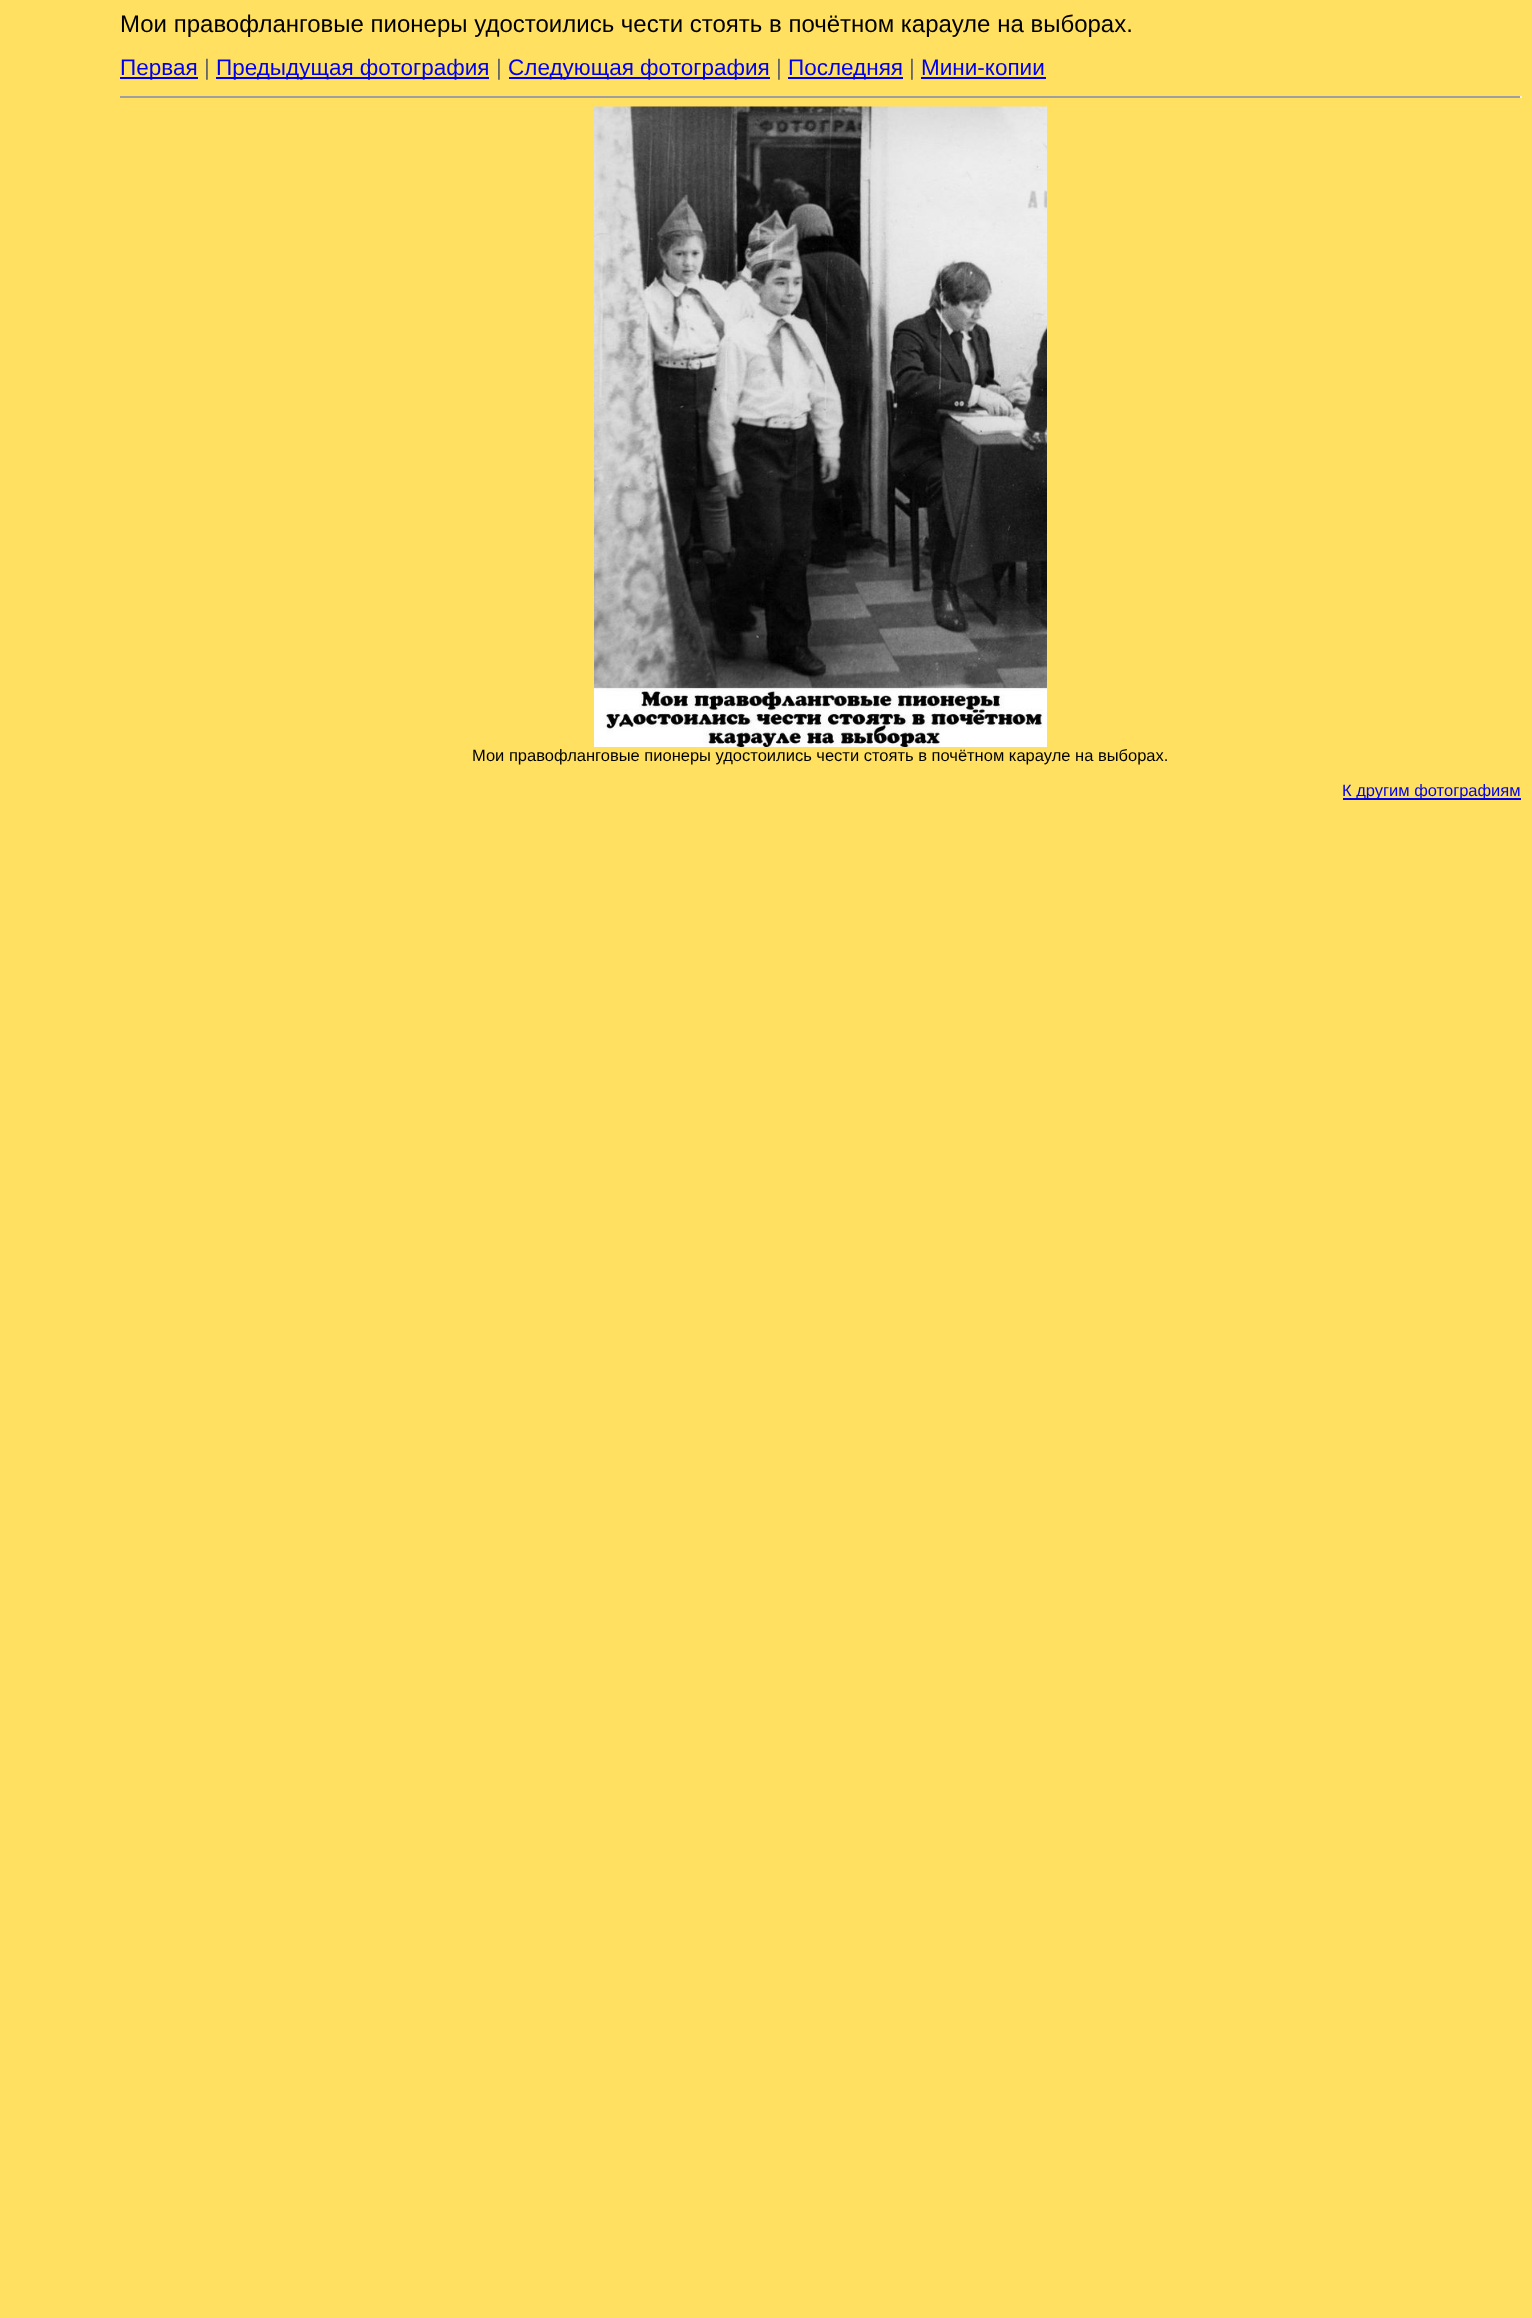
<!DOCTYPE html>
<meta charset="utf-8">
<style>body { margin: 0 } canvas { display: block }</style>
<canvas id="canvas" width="1532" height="2318"></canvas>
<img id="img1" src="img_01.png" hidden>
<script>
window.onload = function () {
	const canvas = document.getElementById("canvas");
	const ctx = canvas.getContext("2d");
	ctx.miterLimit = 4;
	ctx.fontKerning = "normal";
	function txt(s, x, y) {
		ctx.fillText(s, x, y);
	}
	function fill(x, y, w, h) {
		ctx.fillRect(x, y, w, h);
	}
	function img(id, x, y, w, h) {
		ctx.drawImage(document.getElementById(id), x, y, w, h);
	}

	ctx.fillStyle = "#FFE060";
	fill(0, 0, 1532, 2318);
	ctx.fillStyle = "#0000EE";
	fill(120, 77, 78, 2);
	fill(216, 77, 273, 2);
	fill(509, 77, 261, 2);
	fill(788, 77, 115, 2);
	fill(921, 77, 125, 2);
	ctx.fillStyle = "#9F9F9F";
	fill(120, 96, 1401, 2);
	ctx.fillStyle = "#EEEEEE";
	fill(1520, 96, 2, 2);
	img("img1", 594, 106, 453, 641);
	ctx.fillStyle = "#0000EE";
	fill(1343, 798, 178, 2);
	ctx.font = "24px Liberation Sans";
	ctx.fillStyle = "#000000";
	txt("Мои правофланговые пионеры удостоились чести стоять в почётном карауле на выборах.", 120, 32);
	ctx.font = "22.5px Liberation Sans";
	ctx.fillStyle = "#0000EE";
	txt("Первая", 120, 75);
	ctx.fillStyle = "#666666";
	txt("|", 204, 75);
	ctx.fillStyle = "#0000EE";
	txt("Предыдущая фотография", 216, 75);
	ctx.fillStyle = "#666666";
	txt("|", 496, 75);
	ctx.fillStyle = "#0000EE";
	txt("Следующая фотография", 508, 75);
	ctx.fillStyle = "#666666";
	txt("|", 776, 75);
	ctx.fillStyle = "#0000EE";
	txt("Последняя", 788, 75);
	ctx.fillStyle = "#666666";
	txt("|", 909, 75);
	ctx.fillStyle = "#0000EE";
	txt("Мини-копии", 921, 75);
	ctx.font = "16.5px Liberation Sans";
	ctx.fillStyle = "#000000";
	txt("Мои правофланговые пионеры удостоились чести стоять в почётном карауле на выборах.", 472, 761);
	ctx.fillStyle = "#0000EE";
	txt("К другим фотографиям", 1342, 796);
};
</script>
